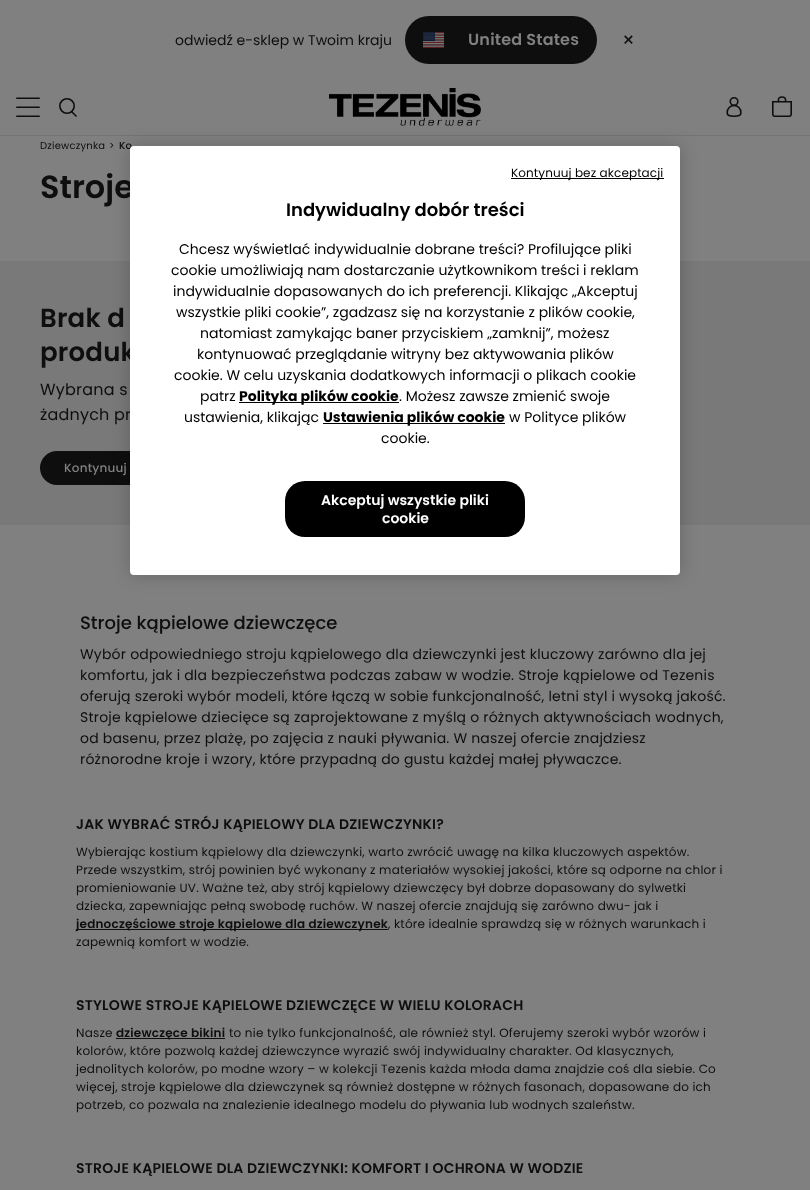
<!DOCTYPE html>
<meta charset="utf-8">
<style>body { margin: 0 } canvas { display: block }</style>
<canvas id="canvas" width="810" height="1190"></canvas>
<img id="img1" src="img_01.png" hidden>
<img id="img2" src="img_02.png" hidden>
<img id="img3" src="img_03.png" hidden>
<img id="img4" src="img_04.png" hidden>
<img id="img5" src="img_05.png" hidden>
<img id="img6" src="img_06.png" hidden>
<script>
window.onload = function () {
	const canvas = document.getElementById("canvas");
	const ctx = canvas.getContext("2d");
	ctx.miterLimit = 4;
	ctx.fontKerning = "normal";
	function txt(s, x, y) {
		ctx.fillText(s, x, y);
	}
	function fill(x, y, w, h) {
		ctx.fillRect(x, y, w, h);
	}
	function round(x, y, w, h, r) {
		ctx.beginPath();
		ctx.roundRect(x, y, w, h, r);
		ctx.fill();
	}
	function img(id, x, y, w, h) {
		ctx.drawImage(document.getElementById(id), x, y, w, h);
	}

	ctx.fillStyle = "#808080";
	fill(0, 0, 810, 1190);
	ctx.fillStyle = "#0E0E0E";
	round(405, 16, 192, 48, 24);
	img("img1", 423, 32, 21, 16);
	ctx.fillStyle = "#747474";
	fill(0, 135, 810, 1);
	img("img2", 16, 97, 24, 20);
	img("img3", 59, 98, 18, 19);
	img("img4", 329, 88, 152, 38);
	img("img5", 726, 97, 16, 20);
	img("img6", 772, 96, 20, 21);
	ctx.fillStyle = "#797979";
	fill(0, 261, 810, 264);
	ctx.fillStyle = "#0E0E0E";
	round(40, 451, 159, 34, 17);
	fill(76, 929, 312, 1);
	fill(116, 1038, 109, 1);
	ctx.fillStyle = "rgba(0, 0, 0, 0.2)";
	ctx.filter = "blur(9px)";
	ctx.beginPath();
	ctx.roundRect(130, 146, 550, 429, 4);
	ctx.fill();
	ctx.filter = "none";
	ctx.font = "14px Poppins";
	ctx.fillStyle = "#0E0E0E";
	txt("odwiedź e-sklep w Twoim kraju", 175, 45);
	ctx.letterSpacing = "0.2px";
	ctx.font = "600 16px Poppins";
	ctx.fillStyle = "#808080";
	txt("United States", 468, 45);
	ctx.font = "20px Poppins";
	ctx.fillStyle = "#0E0E0E";
	txt("×", 622, 47);
	ctx.font = "10px Poppins";
	txt("Dziewczynka", 40, 149);
	txt(">", 109, 149);
	ctx.font = "500 10px Poppins";
	txt("Ko", 119, 149);
	ctx.letterSpacing = "0px";
	ctx.font = "600 32px Poppins";
	txt("Stroje", 40, 198);
	ctx.letterSpacing = "0.2px";
	ctx.font = "600 26px Poppins";
	txt("Brak d", 40, 327);
	txt("produk", 40, 361);
	ctx.font = "16px Poppins";
	txt("Wybrana s", 40, 395);
	txt("żadnych pr", 40, 420);
	ctx.font = "500 12px Poppins";
	ctx.fillStyle = "#808080";
	txt("Kontynuuj", 64, 472);
	ctx.letterSpacing = "0px";
	ctx.font = "500 18px Poppins";
	ctx.fillStyle = "#0E0E0E";
	txt("Stroje kąpielowe dziewczęce", 80, 629);
	ctx.letterSpacing = "0.2px";
	ctx.font = "14px Poppins";
	txt("Wybór odpowiedniego stroju kąpielowego dla dziewczynki jest kluczowy zarówno dla jej", 80, 659);
	txt("komfortu, jak i dla bezpieczeństwa podczas zabaw w wodzie. Stroje kąpielowe od Tezenis", 80, 680);
	txt("oferują szeroki wybór modeli, które łączą w sobie funkcjonalność, letni styl i wysoką jakość.", 80, 701);
	txt("Stroje kąpielowe dziecięce są zaprojektowane z myślą o różnych aktywnościach wodnych,", 80, 722);
	txt("od basenu, przez plażę, po zajęcia z nauki pływania. W naszej ofercie znajdziesz", 80, 743);
	txt("różnorodne kroje i wzory, które przypadną do gustu każdej małej pływaczce.", 80, 764);
	ctx.font = "600 14px Poppins";
	txt("JAK WYBRAĆ STRÓJ KĄPIELOWY DLA DZIEWCZYNKI?", 76, 829);
	ctx.font = "12px Poppins";
	txt("Wybierając kostium kąpielowy dla dziewczynki, warto zwrócić uwagę na kilka kluczowych aspektów.", 76, 856);
	txt("Przede wszystkim, strój powinien być wykonany z materiałów wysokiej jakości, które są odporne na chlor i", 76, 874);
	txt("promieniowanie UV. Ważne też, aby strój kąpielowy dziewczęcy był dobrze dopasowany do sylwetki", 76, 892);
	txt("dziecka, zapewniając pełną swobodę ruchów. W naszej ofercie znajdują się zarówno dwu- jak i", 76, 910);
	ctx.font = "600 12px Poppins";
	txt("jednoczęściowe stroje kąpielowe dla dziewczynek", 76, 928);
	ctx.font = "12px Poppins";
	txt(", które idealnie sprawdzą się w różnych warunkach i", 388, 928);
	txt("zapewnią komfort w wodzie.", 76, 946);
	ctx.font = "600 14px Poppins";
	txt("STYLOWE STROJE KĄPIELOWE DZIEWCZĘCE W WIELU KOLORACH", 76, 1010);
	ctx.font = "12px Poppins";
	txt("Nasze", 76, 1037);
	ctx.font = "600 12px Poppins";
	txt("dziewczęce bikini", 116, 1037);
	ctx.font = "12px Poppins";
	txt("to nie tylko funkcjonalność, ale również styl. Oferujemy szeroki wybór wzorów i", 229, 1037);
	txt("kolorów, które pozwolą każdej dziewczynce wyrazić swój indywidualny charakter. Od klasycznych,", 76, 1055);
	txt("jednolitych kolorów, po modne wzory – w kolekcji Tezenis każda młoda dama znajdzie coś dla siebie. Co", 76, 1073);
	txt("więcej, stroje kąpielowe dla dziewczynek są również dostępne w różnych fasonach, dopasowane do ich", 76, 1091);
	txt("potrzeb, co pozwala na znalezienie idealnego modelu do pływania lub wodnych szaleństw.", 76, 1109);
	ctx.font = "600 14px Poppins";
	txt("STROJE KĄPIELOWE DLA DZIEWCZYNKI: KOMFORT I OCHRONA W WODZIE", 76, 1173);
	ctx.fillStyle = "#FFFFFF";
	round(130, 146, 550, 429, 4);
	ctx.fillStyle = "#000000";
	fill(511, 178, 153, 1);
	ctx.letterSpacing = "0.1px";
	ctx.font = "12px Poppins";
	txt("Kontynuuj bez akceptacji", 511, 177);
	ctx.letterSpacing = "0px";
	ctx.font = "600 18px Poppins";
	txt("Indywidualny dobór treści", 286, 216);
	ctx.font = "14px Poppins";
	txt("Chcesz wyświetlać indywidualnie dobrane treści? Profilujące pliki", 179, 254);
	txt("cookie umożliwiają nam dostarczanie użytkownikom treści i reklam", 171, 275);
	txt("indywidualnie dopasowanych do ich preferencji. Klikając „Akceptuj", 173, 296);
	txt("wszystkie pliki cookie”, zgadzasz się na korzystanie z plików cookie,", 176, 317);
	txt("natomiast zamykając baner przyciskiem „zamknij”, możesz", 200, 338);
	txt("kontynuować przeglądanie witryny bez aktywowania plików", 197, 359);
	txt("cookie. W celu uzyskania dodatkowych informacji o plikach cookie", 174, 380);
	txt("patrz", 200, 401);
	fill(239, 402, 160, 1);
	ctx.font = "bold 14px Poppins";
	txt("Polityka plików cookie", 239, 401);
	ctx.font = "14px Poppins";
	txt(". Możesz zawsze zmienić swoje", 399, 401);
	txt("ustawienia, klikając", 184, 422);
	fill(323, 423, 182, 1);
	ctx.font = "bold 14px Poppins";
	txt("Ustawienia plików cookie", 323, 422);
	ctx.font = "14px Poppins";
	txt("w Polityce plików", 509, 422);
	txt("cookie.", 381, 443);
	round(285, 481, 240, 56, 20);
	ctx.font = "600 14px Poppins";
	ctx.fillStyle = "#FFFFFF";
	txt("Akceptuj wszystkie pliki", 321, 505);
	txt("cookie", 382, 523);
};
</script>
